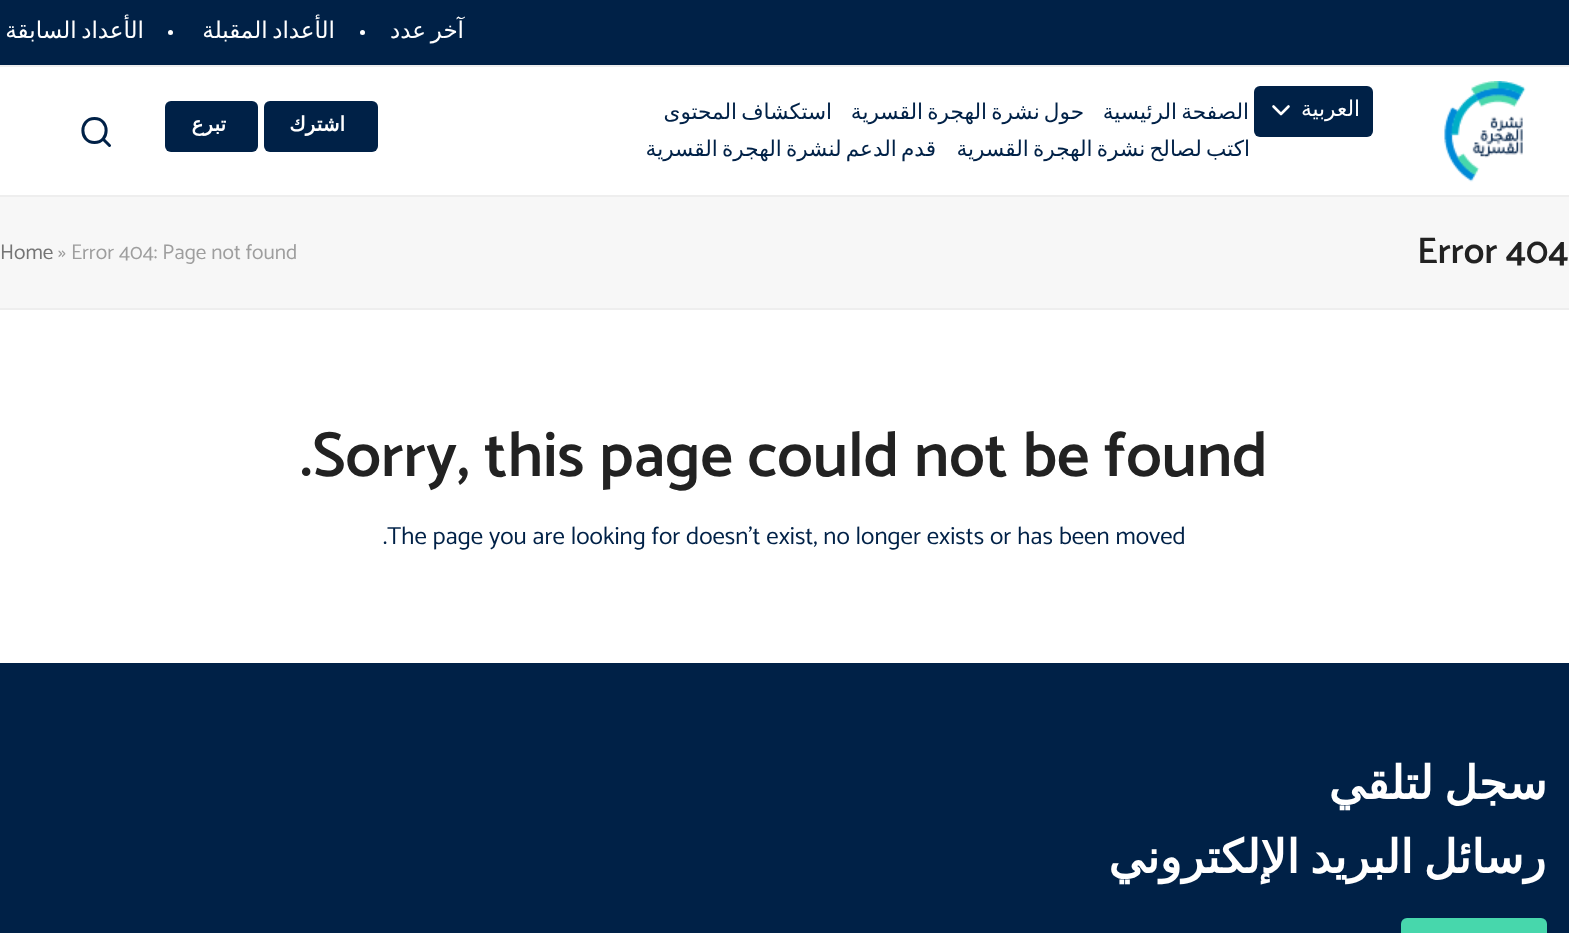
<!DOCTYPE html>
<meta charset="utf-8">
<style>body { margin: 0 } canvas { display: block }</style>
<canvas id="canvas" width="1569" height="933"></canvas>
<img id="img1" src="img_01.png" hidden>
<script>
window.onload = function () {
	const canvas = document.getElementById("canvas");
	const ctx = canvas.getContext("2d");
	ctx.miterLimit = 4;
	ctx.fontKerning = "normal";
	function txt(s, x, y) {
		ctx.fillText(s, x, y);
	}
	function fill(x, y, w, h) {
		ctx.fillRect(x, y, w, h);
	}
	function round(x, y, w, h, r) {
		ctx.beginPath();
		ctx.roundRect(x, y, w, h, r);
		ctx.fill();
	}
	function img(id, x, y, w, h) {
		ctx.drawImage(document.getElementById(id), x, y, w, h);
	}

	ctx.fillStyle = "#FFFFFF";
	fill(0, 0, 1569, 933);
	ctx.fillStyle = "#002147";
	fill(0, 0, 1569, 65);
	ctx.fillStyle = "#EEEEEE";
	fill(0, 65, 1569, 2);
	ctx.fillStyle = "#FFFFFF";
	ctx.beginPath();
	ctx.arc(362.5, 32.5, 2.5, 0, Math.PI * 2);
	ctx.fill();
	ctx.beginPath();
	ctx.arc(170.5, 32.5, 2.5, 0, Math.PI * 2);
	ctx.fill();
	img("img1", 1444, 81, 82, 101);
	ctx.fillStyle = "#002147";
	round(1254, 86, 119, 51, 6);
	ctx.beginPath();
	ctx.moveTo(1273.5, 106.5);
	ctx.lineTo(1281, 114);
	ctx.lineTo(1288.5, 106.5);
	ctx.strokeStyle = "#FFFFFF";
	ctx.lineWidth = 2.6;
	ctx.lineCap = "round";
	ctx.lineJoin = "round";
	ctx.stroke();
	ctx.beginPath();
	ctx.moveTo(94.5, 142.5);
	ctx.bezierCurveTo(110, 142.5, 110, 118.5, 94.5, 118.5);
	ctx.bezierCurveTo(79, 118.5, 79, 142.5, 94.5, 142.5);
	ctx.closePath();
	ctx.moveTo(109.5, 145.5);
	ctx.lineTo(103, 139);
	ctx.strokeStyle = "#002147";
	ctx.lineWidth = 3;
	ctx.stroke();
	round(264, 101, 114, 51, 6);
	round(165, 101, 93, 51, 6);
	ctx.fillStyle = "#F7F7F7";
	fill(0, 197, 1569, 111);
	ctx.fillStyle = "#EEEEEE";
	fill(0, 195, 1569, 2);
	fill(0, 308, 1569, 2);
	ctx.fillStyle = "#002147";
	fill(0, 663, 1569, 270);
	ctx.fillStyle = "#47D7AC";
	round(1401, 918, 146, 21, 6);
	ctx.letterSpacing = "0.3px";
	ctx.wordSpacing = "-3px";
	ctx.direction = "rtl";
	ctx.font = "23px DejaVu Sans";
	ctx.fillStyle = "#FFFFFF";
	txt("آخر عدد", 464, 38);
	txt("الأعداد المقبلة", 335, 38);
	txt("الأعداد السابقة", 144, 38);
	ctx.wordSpacing = "0px";
	ctx.font = "21.6px DejaVu Sans";
	txt("العربية", 1360, 116);
	ctx.wordSpacing = "-3px";
	ctx.fillStyle = "#002147";
	txt("الصفحة الرئيسية", 1249, 119);
	txt("حول نشرة الهجرة القسرية", 1084, 119);
	txt("استكشاف المحتوى", 832, 119);
	txt("اكتب لصالح نشرة الهجرة القسرية", 1250, 156);
	txt("قدم الدعم لنشرة الهجرة القسرية", 936, 156);
	ctx.letterSpacing = "-0.75px";
	ctx.wordSpacing = "0px";
	ctx.font = "bold 20px DejaVu Sans";
	ctx.fillStyle = "#FFFFFF";
	txt("اشترك", 345, 131);
	txt("تبرع", 226, 131);
	ctx.letterSpacing = "0px";
	ctx.direction = "ltr";
	ctx.font = "600 37px Catamaran";
	ctx.fillStyle = "#222222";
	txt("Error 404", 1417, 263);
	ctx.font = "21.25px Catamaran";
	ctx.fillStyle = "#9E9E9E";
	txt("» Error 404: Page not found", 58, 259);
	ctx.fillStyle = "#757575";
	txt("Home", 0, 259);
	ctx.font = "600 63.75px Catamaran";
	ctx.fillStyle = "#222222";
	txt(".Sorry, this page could not be found", 300, 476);
	ctx.font = "24.8px Catamaran";
	ctx.fillStyle = "#002147";
	txt(".The page you are looking for doesn't exist, no longer exists or has been moved", 383, 544);
	ctx.wordSpacing = "-4px";
	ctx.direction = "rtl";
	ctx.font = "bold 46px DejaVu Sans";
	ctx.fillStyle = "#FFFFFF";
	txt("سجل لتلقي", 1547, 799);
	txt("رسائل البريد الإلكتروني", 1546, 873);
};
</script>
